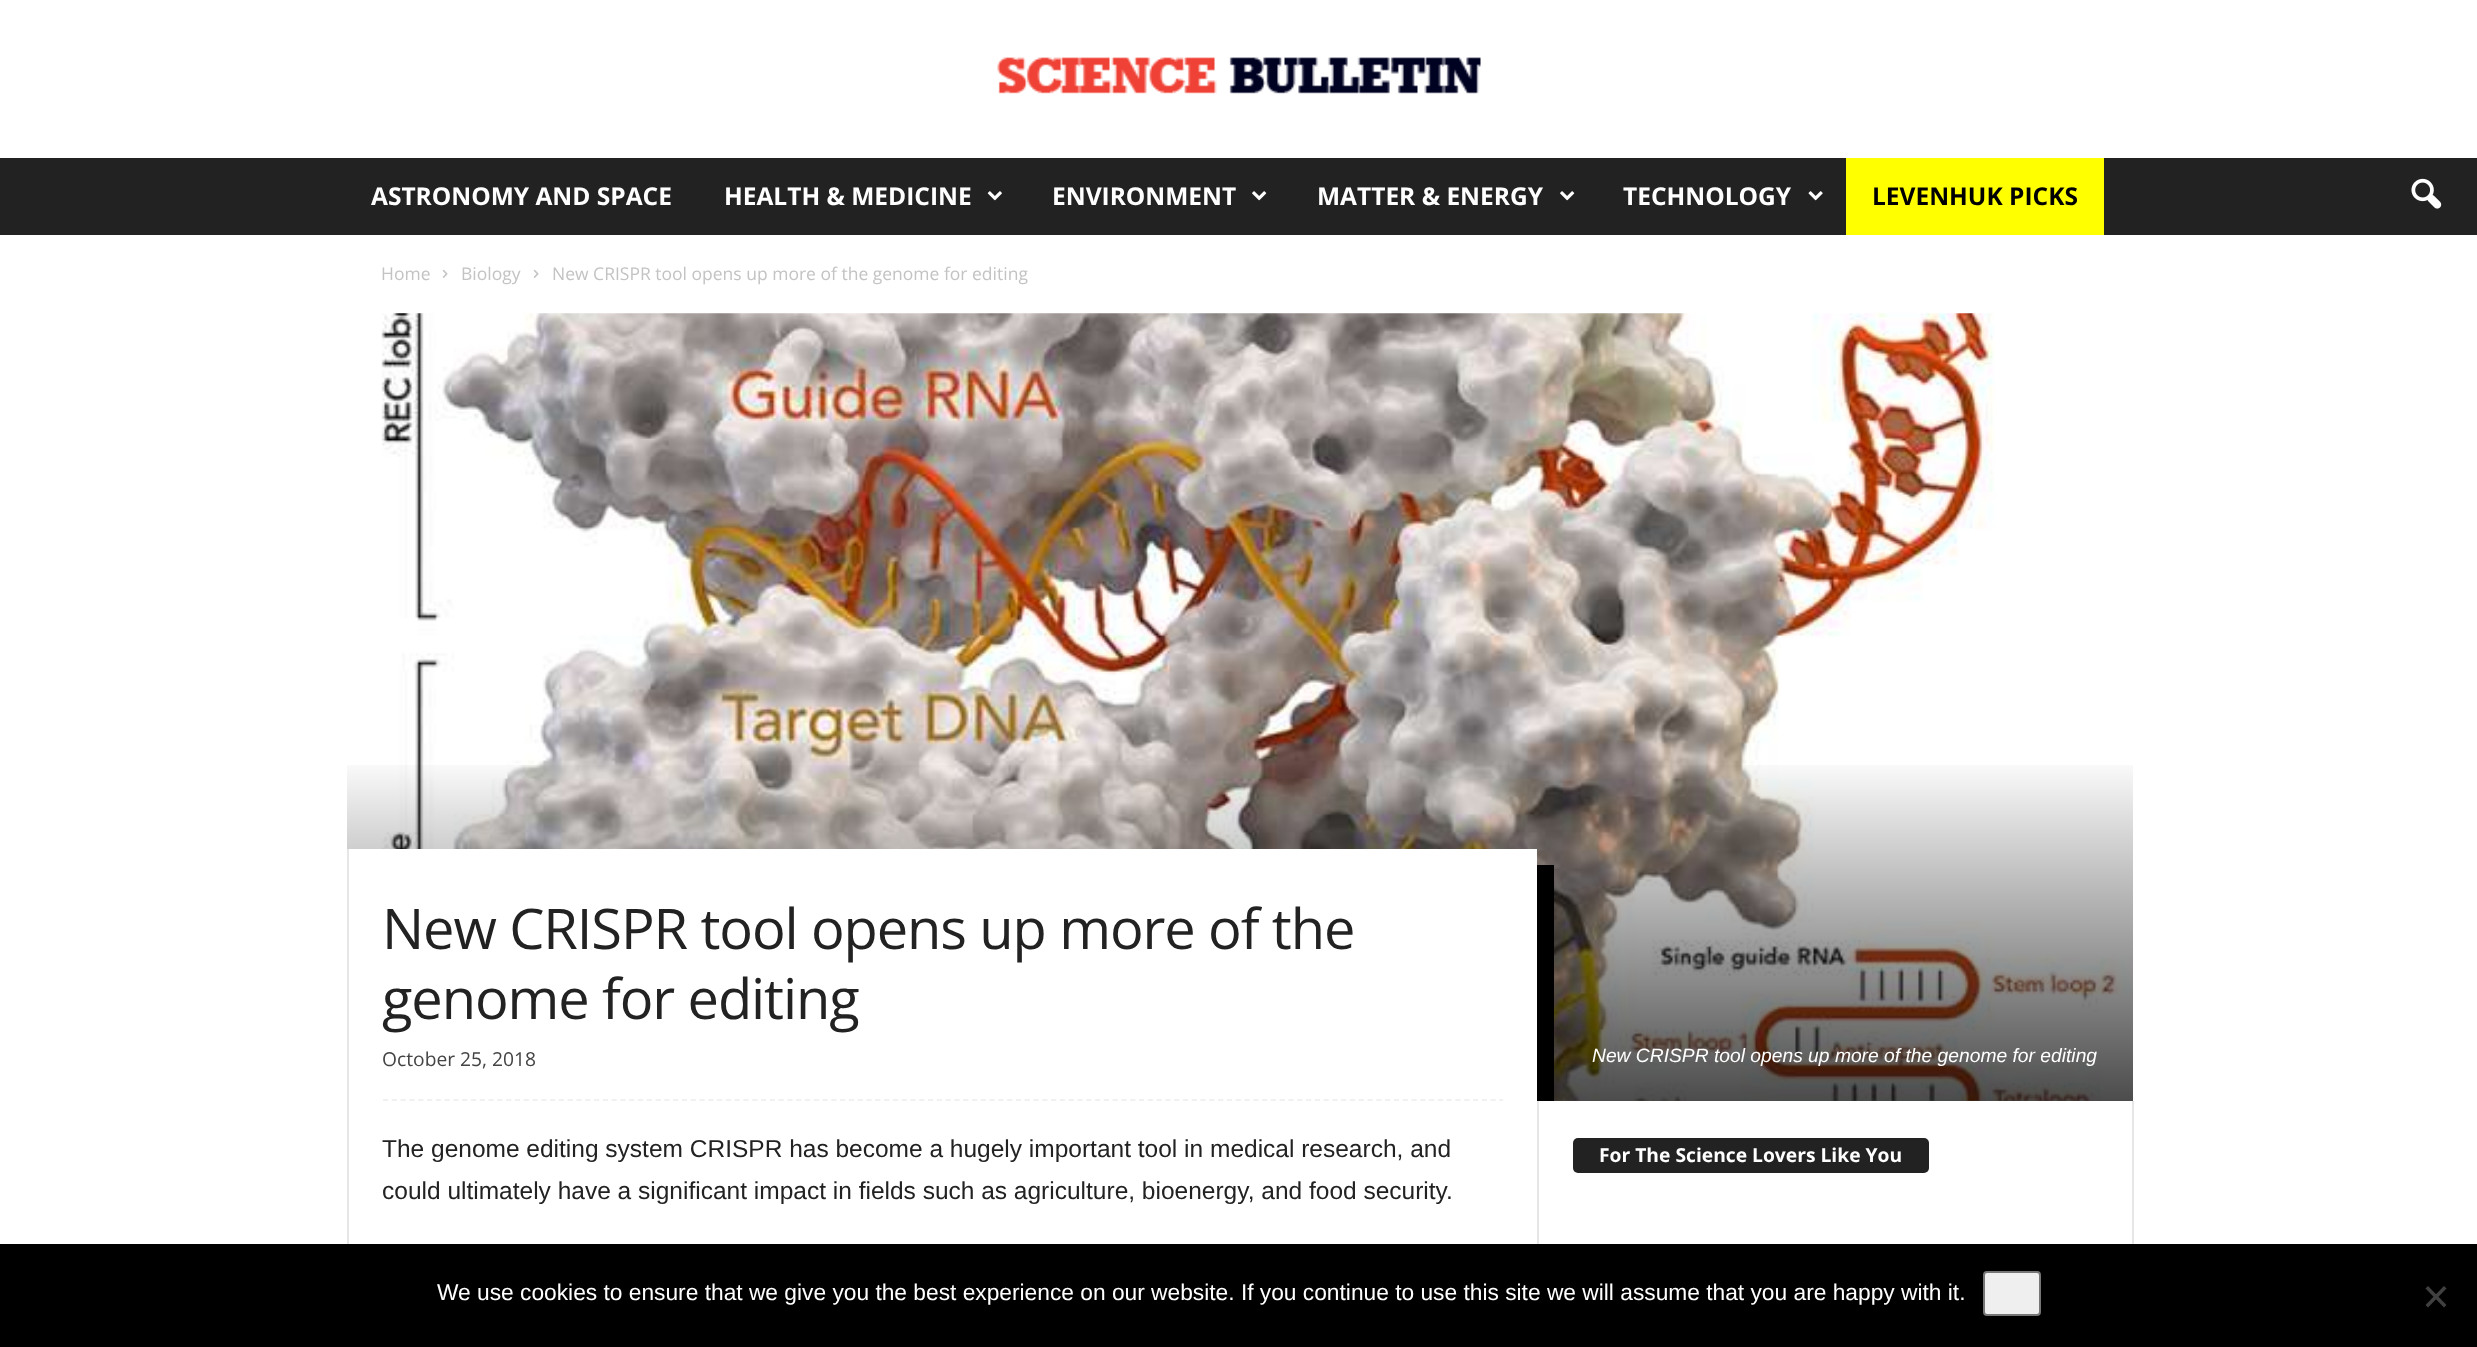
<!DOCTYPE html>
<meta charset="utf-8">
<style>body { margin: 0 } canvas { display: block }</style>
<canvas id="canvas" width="2477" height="1347"></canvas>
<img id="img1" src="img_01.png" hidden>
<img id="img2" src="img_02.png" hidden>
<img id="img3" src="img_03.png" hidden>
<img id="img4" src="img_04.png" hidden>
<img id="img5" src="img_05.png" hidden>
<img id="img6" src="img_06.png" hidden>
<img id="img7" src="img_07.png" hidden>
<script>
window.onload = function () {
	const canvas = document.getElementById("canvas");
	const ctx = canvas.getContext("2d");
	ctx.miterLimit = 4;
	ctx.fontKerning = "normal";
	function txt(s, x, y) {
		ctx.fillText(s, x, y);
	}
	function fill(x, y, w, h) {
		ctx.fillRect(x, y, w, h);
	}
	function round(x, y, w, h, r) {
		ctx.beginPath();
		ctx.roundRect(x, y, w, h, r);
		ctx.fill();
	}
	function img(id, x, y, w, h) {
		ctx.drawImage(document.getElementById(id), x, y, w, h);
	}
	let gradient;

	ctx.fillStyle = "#FFFFFF";
	fill(0, 0, 2477, 1347);
	img("img1", 997, 57, 484, 37);
	ctx.fillStyle = "#222222";
	fill(0, 158, 2477, 77);
	img("img2", 987, 191, 15, 10);
	img("img3", 1252, 191, 15, 10);
	img("img3", 1560, 191, 15, 10);
	img("img4", 1808, 191, 15, 10);
	ctx.fillStyle = "#FFFF00";
	fill(1846, 158, 258, 77);
	img("img5", 2411, 178, 31, 31);
	img("img6", 442, 269, 6, 9);
	img("img6", 533, 269, 6, 9);
	img("img7", 347, 313, 1786, 788);
	gradient = ctx.createLinearGradient(1240, 754, 1240, 1101);
	gradient.addColorStop(0, "rgba(0, 0, 0, 0)");
	gradient.addColorStop(1, "rgba(0, 0, 0, 0.7)");
	ctx.fillStyle = gradient;
	fill(347, 765, 1786, 336);
	ctx.fillStyle = "#000000";
	ctx.beginPath();
	ctx.moveTo(347, 1101);
	ctx.lineTo(347, 1134);
	ctx.lineTo(1554, 1134);
	ctx.lineTo(1554, 865);
	ctx.lineTo(1536, 865);
	ctx.lineTo(1536, 1101);
	ctx.closePath();
	ctx.fill();
	ctx.fillStyle = "#FFFFFF";
	fill(349, 849, 1188, 252);
	ctx.fillStyle = "#E6E6E6";
	fill(347, 849, 2, 395);
	ctx.beginPath();
	ctx.moveTo(383, 1100);
	ctx.lineTo(1503, 1100);
	ctx.strokeStyle = "#F1F1F1";
	ctx.lineWidth = 1.8;
	ctx.setLineDash([5.25, 3.54]);
	ctx.stroke();
	ctx.fillStyle = "#FFFFFF";
	fill(349, 1101, 1205, 33);
	ctx.fillStyle = "#E6E6E6";
	fill(1537, 1101, 2, 143);
	ctx.fillStyle = "#222222";
	round(1573, 1138, 356, 35, 5);
	ctx.fillStyle = "#E6E6E6";
	fill(2132, 1101, 2, 143);
	ctx.fillStyle = "#000000";
	fill(0, 1244, 2477, 103);
	ctx.fillStyle = "#EFEFEF";
	ctx.beginPath();
	ctx.roundRect(1984, 1272, 56, 43, 3);
	ctx.fill();
	ctx.strokeStyle = "#767676";
	ctx.lineWidth = 2;
	ctx.setLineDash([]);
	ctx.stroke();
	ctx.fillStyle = "#404040";
	ctx.beginPath();
	ctx.moveTo(2444, 1286);
	ctx.lineTo(2446.5, 1288.5);
	ctx.lineTo(2428, 1307.5);
	ctx.lineTo(2425.5, 1305);
	ctx.closePath();
	ctx.fill();
	ctx.beginPath();
	ctx.moveTo(2425.5, 1288.5);
	ctx.lineTo(2428, 1286);
	ctx.lineTo(2446.5, 1305);
	ctx.lineTo(2444, 1307.5);
	ctx.closePath();
	ctx.fill();
	ctx.font = "bold 24.5px Open Sans";
	ctx.fillStyle = "#FFFFFF";
	txt("ASTRONOMY AND SPACE", 371, 205);
	txt("HEALTH & MEDICINE", 724, 205);
	txt("ENVIRONMENT", 1052, 205);
	txt("MATTER & ENERGY", 1317, 205);
	txt("TECHNOLOGY", 1623, 205);
	ctx.fillStyle = "#000000";
	txt("LEVENHUK PICKS", 1872, 205);
	ctx.font = "17.5px Open Sans";
	ctx.fillStyle = "#C3C3C3";
	txt("Home", 381, 280);
	txt("Biology", 461, 280);
	txt("New CRISPR tool opens up more of the genome for editing", 552, 280);
	ctx.letterSpacing = "-1.1px";
	ctx.font = "56px Open Sans";
	ctx.fillStyle = "#222222";
	txt("New CRISPR tool opens up more of the", 382, 949);
	txt("genome for editing", 382, 1019);
	ctx.letterSpacing = "0px";
	ctx.font = "19.25px Open Sans";
	ctx.fillStyle = "#444444";
	txt("October 25, 2018", 382, 1066);
	ctx.font = "italic 19.25px Liberation Sans";
	ctx.fillStyle = "#FFFFFF";
	txt("New CRISPR tool opens up more of the genome for editing", 1592, 1062);
	ctx.font = "24.5px Liberation Sans";
	ctx.fillStyle = "#222222";
	txt("The genome editing system CRISPR has become a hugely important tool in medical research, and", 382, 1157);
	txt("could ultimately have a significant impact in fields such as agriculture, bioenergy, and food security.", 382, 1199);
	ctx.font = "bold 19.25px Open Sans";
	ctx.fillStyle = "#FFFFFF";
	txt("For The Science Lovers Like You", 1599, 1162);
	ctx.font = "22.75px Liberation Sans";
	txt("We use cookies to ensure that we give you the best experience on our website. If you continue to use this site we will assume that you are happy with it.", 437, 1300);
};
</script>
